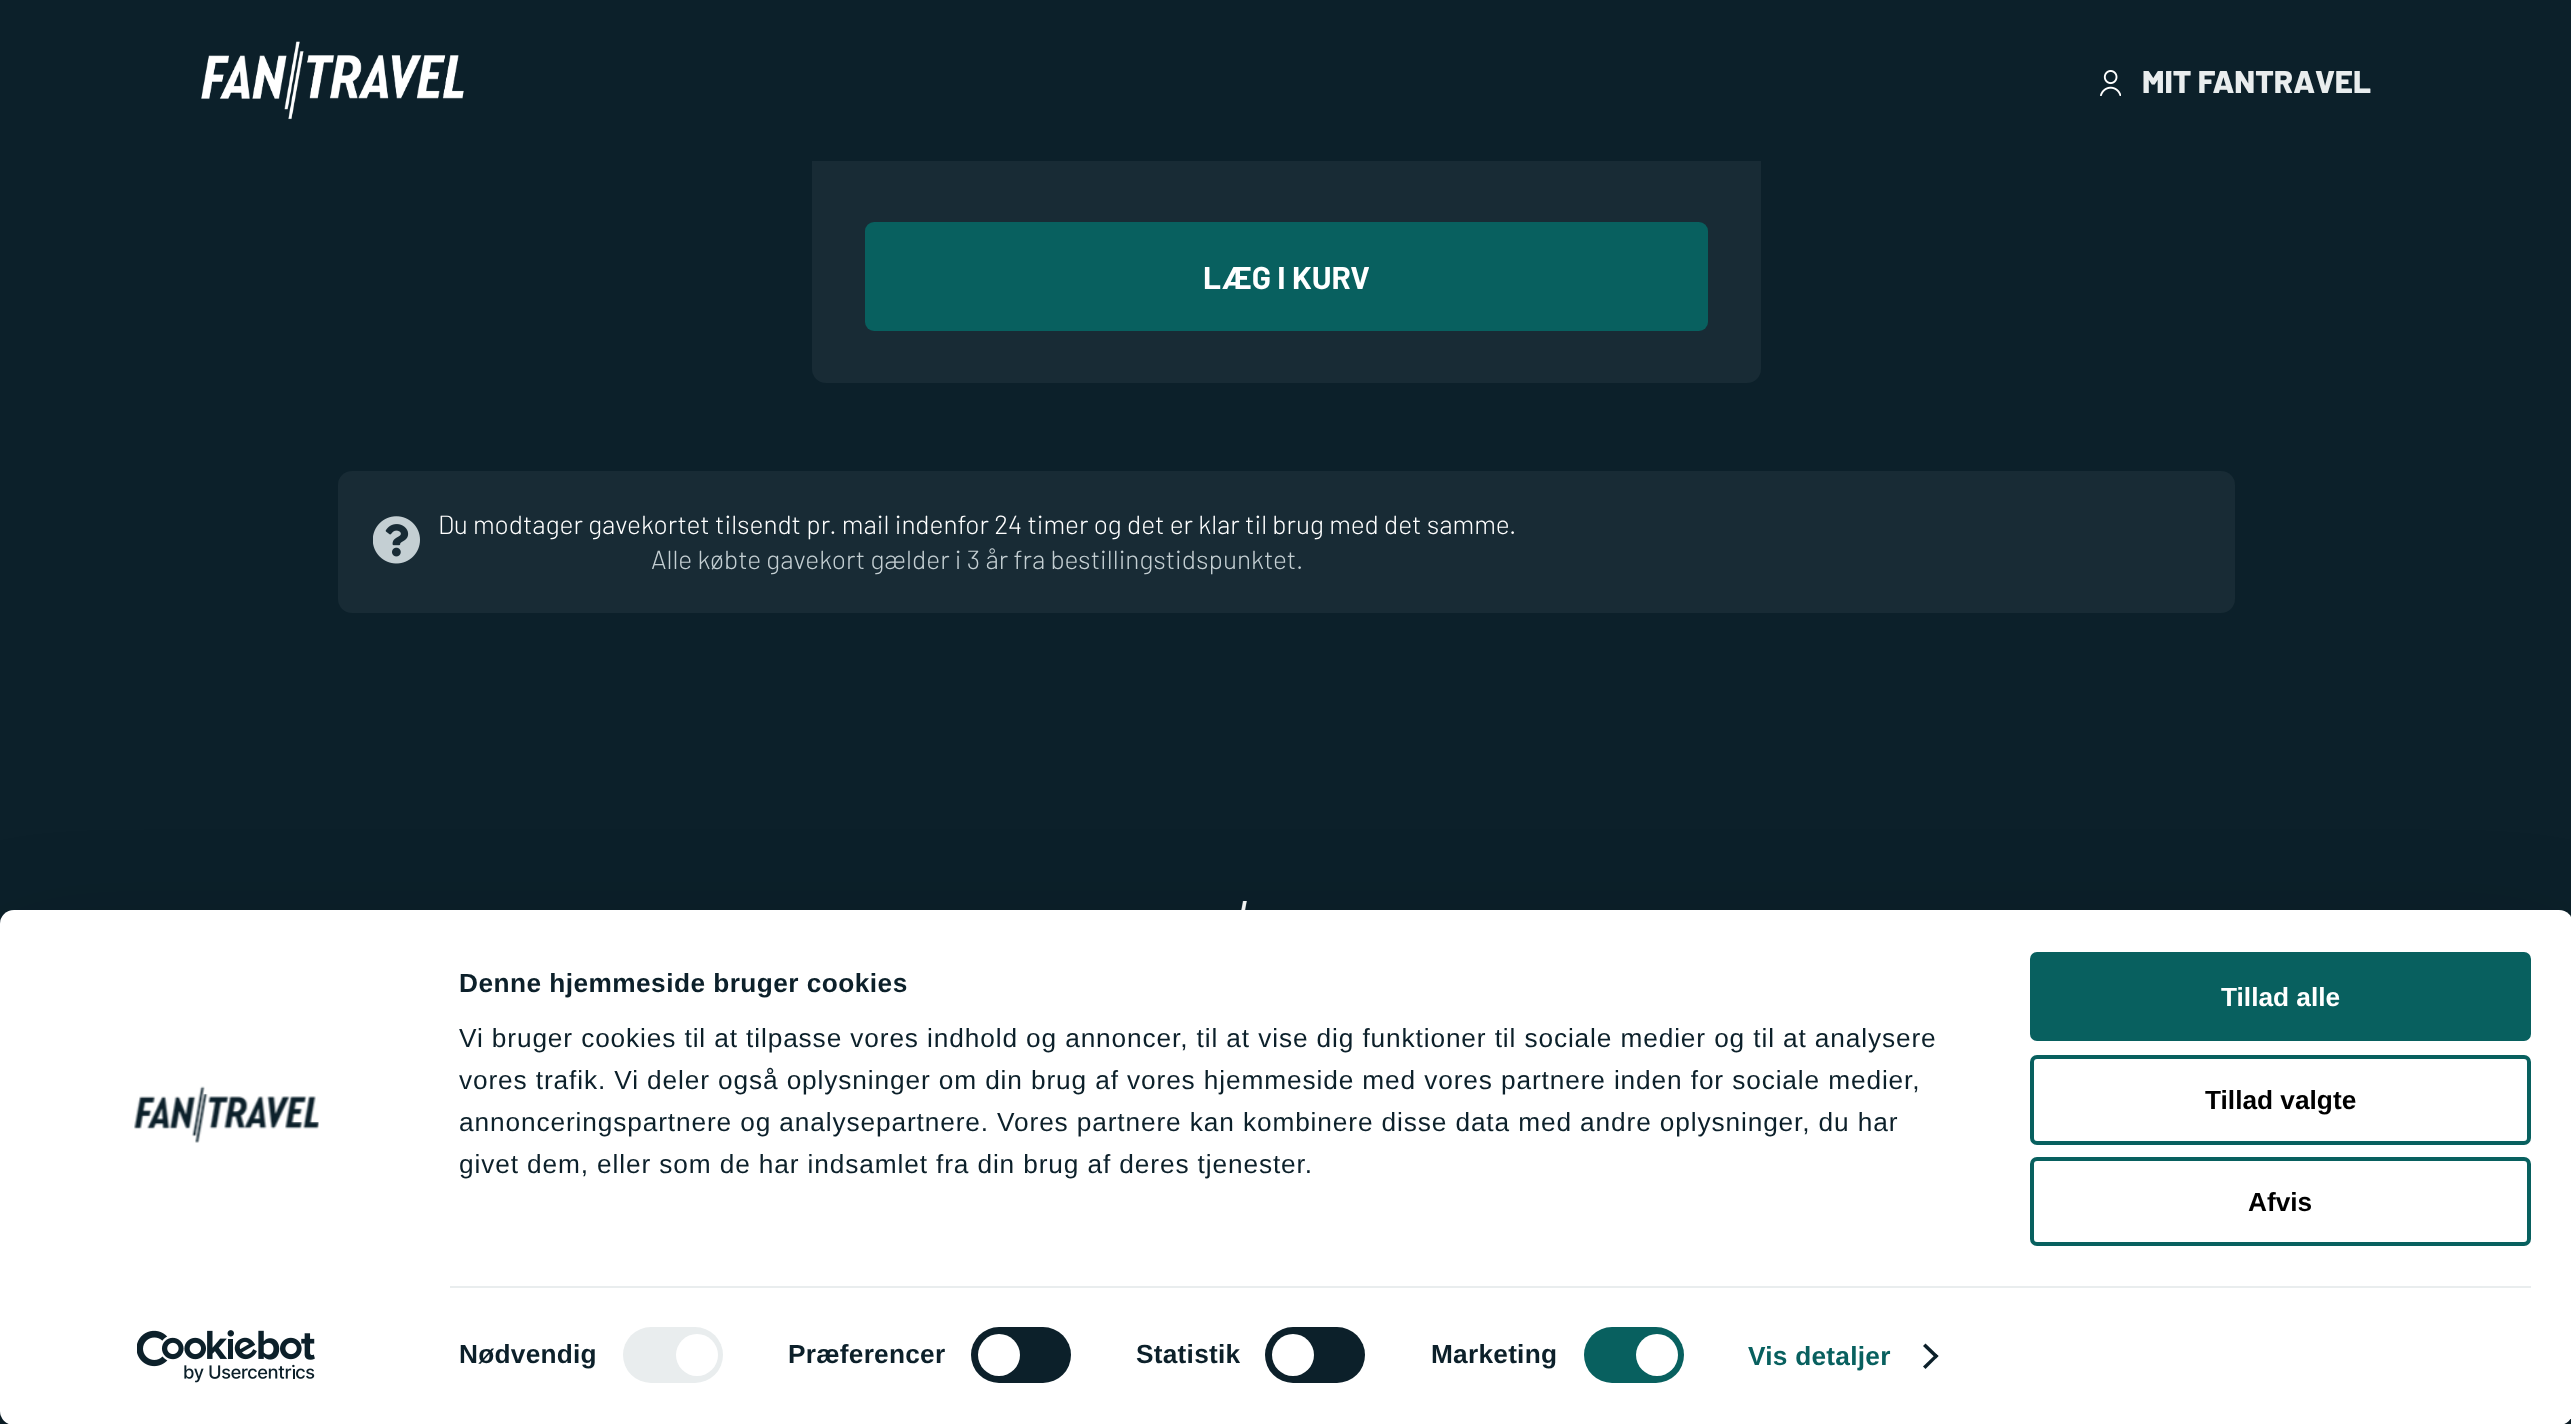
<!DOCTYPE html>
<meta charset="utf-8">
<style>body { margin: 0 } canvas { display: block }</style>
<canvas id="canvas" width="2571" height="1424"></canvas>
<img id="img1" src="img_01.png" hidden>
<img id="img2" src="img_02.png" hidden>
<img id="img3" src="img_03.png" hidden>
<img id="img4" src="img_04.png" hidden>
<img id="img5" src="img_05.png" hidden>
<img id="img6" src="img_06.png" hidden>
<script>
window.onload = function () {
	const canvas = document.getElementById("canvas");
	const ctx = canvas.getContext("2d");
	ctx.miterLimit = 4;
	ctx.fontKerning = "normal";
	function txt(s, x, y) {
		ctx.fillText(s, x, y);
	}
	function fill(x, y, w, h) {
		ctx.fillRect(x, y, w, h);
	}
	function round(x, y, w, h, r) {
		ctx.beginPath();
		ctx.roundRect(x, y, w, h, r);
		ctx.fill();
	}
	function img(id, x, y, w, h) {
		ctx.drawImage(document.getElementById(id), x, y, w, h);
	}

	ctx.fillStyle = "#0C202A";
	fill(0, 0, 2571, 1424);
	ctx.fillStyle = "#182B35";
	round(812, -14, 949, 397, 14);
	ctx.fillStyle = "#0C202A";
	fill(812, 0, 949, 161);
	img("img1", 201, 41, 263, 79);
	img("img2", 2100, 70, 21, 26);
	ctx.fillStyle = "#08605F";
	round(865, 222, 843, 109, 9);
	ctx.fillStyle = "#182B35";
	round(338, 471, 1897, 142, 14);
	img("img3", 373, 516, 47, 48);
	img("img4", 1241, 901, 6, 9);
	ctx.fillStyle = "rgba(0, 0, 0, 0.3)";
	ctx.filter = "blur(61px)";
	ctx.beginPath();
	ctx.roundRect(0, 963, 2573, 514, 14);
	ctx.fill();
	ctx.filter = "none";
	ctx.fillStyle = "#FFFFFF";
	round(0, 910, 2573, 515, 14);
	img("img5", 134, 1086, 185, 57);
	img("img6", 137, 1330, 178, 53);
	ctx.fillStyle = "#E9EDEE";
	fill(450, 1286, 2081, 2);
	round(623, 1327, 100, 56, 28);
	ctx.fillStyle = "#FFFFFF";
	ctx.beginPath();
	ctx.arc(697, 1355, 21, 0, Math.PI * 2);
	ctx.fill();
	ctx.fillStyle = "#0C202A";
	round(971, 1327, 100, 56, 28);
	ctx.fillStyle = "#FFFFFF";
	ctx.beginPath();
	ctx.arc(999, 1355, 21, 0, Math.PI * 2);
	ctx.fill();
	ctx.fillStyle = "#0C202A";
	round(1265, 1327, 100, 56, 28);
	ctx.fillStyle = "#FFFFFF";
	ctx.beginPath();
	ctx.arc(1293, 1355, 21, 0, Math.PI * 2);
	ctx.fill();
	ctx.fillStyle = "#08605F";
	round(1584, 1327, 100, 56, 28);
	ctx.fillStyle = "#FFFFFF";
	ctx.beginPath();
	ctx.arc(1657, 1355, 21, 0, Math.PI * 2);
	ctx.fill();
	ctx.fillStyle = "#0C202A";
	ctx.beginPath();
	ctx.moveTo(1925.5, 1343.5);
	ctx.lineTo(1938.5, 1356);
	ctx.lineTo(1936, 1358.5);
	ctx.lineTo(1923, 1346);
	ctx.closePath();
	ctx.fill();
	ctx.beginPath();
	ctx.moveTo(1936, 1354);
	ctx.lineTo(1938.5, 1356);
	ctx.lineTo(1925.5, 1369);
	ctx.lineTo(1923, 1366.5);
	ctx.closePath();
	ctx.fill();
	ctx.fillStyle = "#08605F";
	ctx.beginPath();
	ctx.roundRect(2032, 954, 497, 85, 5);
	ctx.fill();
	ctx.strokeStyle = "#08605F";
	ctx.lineWidth = 4;
	ctx.stroke();
	ctx.beginPath();
	ctx.roundRect(2032, 1057, 497, 86, 5);
	ctx.stroke();
	ctx.beginPath();
	ctx.roundRect(2032, 1159, 497, 85, 5);
	ctx.stroke();
	ctx.font = "800 31.5px Barlow";
	ctx.fillStyle = "#E9EDEE";
	txt("MIT FANTRAVEL", 2142, 93);
	ctx.font = "bold 31.5px Barlow";
	ctx.fillStyle = "#FFFFFF";
	txt("LÆG I KURV", 1203, 289);
	ctx.font = "300 26.25px Barlow";
	txt("Du modtager gavekortet tilsendt pr. mail indenfor 24 timer og det er klar til brug med det samme.", 438, 534);
	ctx.fillStyle = "#C4CFD3";
	txt("Alle købte gavekort gælder i 3 år fra bestillingstidspunktet.", 651, 569);
	ctx.letterSpacing = "0.45px";
	ctx.font = "bold 26.25px Liberation Sans";
	ctx.fillStyle = "#0C202A";
	txt("Denne hjemmeside bruger cookies", 459, 992);
	ctx.letterSpacing = "0.88px";
	ctx.font = "26.25px Liberation Sans";
	txt("Vi bruger cookies til at tilpasse vores indhold og annoncer, til at vise dig funktioner til sociale medier og til at analysere", 459, 1047);
	txt("vores trafik. Vi deler også oplysninger om din brug af vores hjemmeside med vores partnere inden for sociale medier,", 459, 1089);
	txt("annonceringspartnere og analysepartnere. Vores partnere kan kombinere disse data med andre oplysninger, du har", 459, 1131);
	txt("givet dem, eller som de har indsamlet fra din brug af deres tjenester.", 459, 1173);
	ctx.letterSpacing = "0.25px";
	ctx.font = "bold 26.25px Liberation Sans";
	txt("Nødvendig", 459, 1363);
	txt("Præferencer", 788, 1363);
	txt("Statistik", 1136, 1363);
	txt("Marketing", 1431, 1363);
	ctx.fillStyle = "#08605F";
	txt("Vis detaljer", 1748, 1365);
	ctx.letterSpacing = "0px";
	ctx.fillStyle = "#FFFFFF";
	txt("Tillad alle", 2221, 1006);
	ctx.fillStyle = "#000000";
	txt("Tillad valgte", 2205, 1109);
	txt("Afvis", 2248, 1211);
};
</script>
